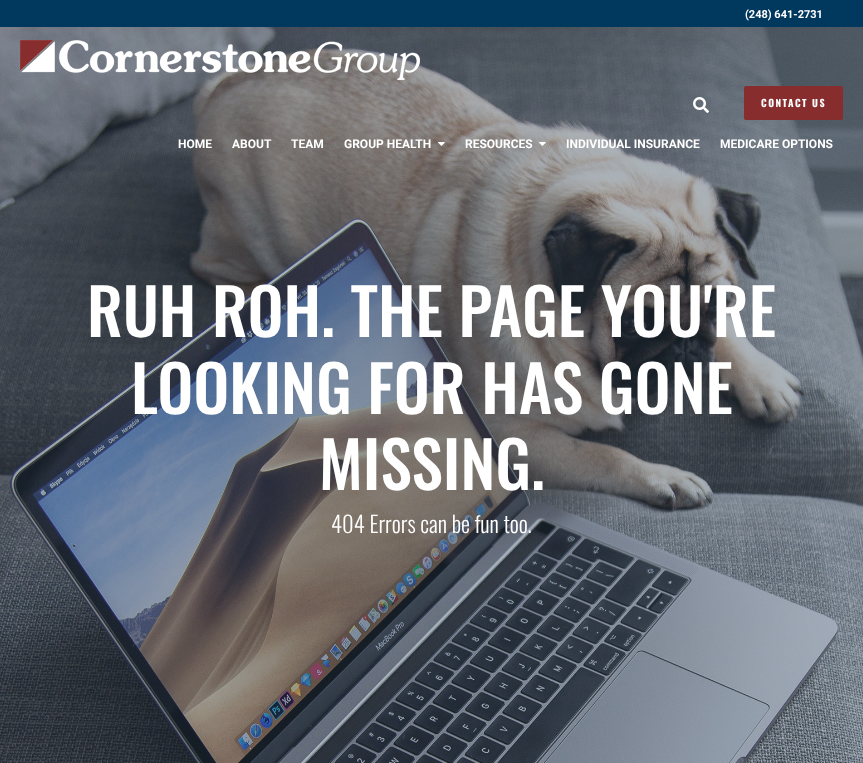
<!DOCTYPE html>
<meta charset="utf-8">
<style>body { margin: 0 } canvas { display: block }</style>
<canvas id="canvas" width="863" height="763"></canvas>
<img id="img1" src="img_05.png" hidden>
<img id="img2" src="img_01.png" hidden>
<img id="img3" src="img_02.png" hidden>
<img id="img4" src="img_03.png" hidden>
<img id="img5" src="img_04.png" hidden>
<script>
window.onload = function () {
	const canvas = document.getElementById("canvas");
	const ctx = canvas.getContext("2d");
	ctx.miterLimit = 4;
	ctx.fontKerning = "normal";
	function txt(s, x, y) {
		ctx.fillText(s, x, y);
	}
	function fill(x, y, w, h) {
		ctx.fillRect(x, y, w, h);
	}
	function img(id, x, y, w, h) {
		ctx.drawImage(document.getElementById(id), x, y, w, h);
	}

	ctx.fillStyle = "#FFFFFF";
	fill(0, 0, 863, 763);
	ctx.fillStyle = "#01385E";
	fill(0, 0, 863, 27);
	img("img1", 0, 27, 863, 736);
	img("img2", 20, 40, 400, 40);
	img("img3", 693, 97, 16, 16);
	ctx.fillStyle = "#882D2E";
	ctx.beginPath();
	ctx.roundRect(745, 87, 97, 32, 1);
	ctx.fill();
	ctx.strokeStyle = "#882D2E";
	ctx.lineWidth = 2;
	ctx.stroke();
	img("img4", 438, 142, 7, 4);
	img("img5", 539, 142, 7, 4);
	ctx.font = "bold 11px Roboto";
	ctx.fillStyle = "#FFFFFF";
	txt("(248) 641-2731", 745, 18);
	ctx.letterSpacing = "1.5px";
	ctx.font = "bold 10px Oswald";
	txt("CONTACT US", 761, 107);
	ctx.letterSpacing = "0px";
	ctx.font = "bold 12px Roboto";
	txt("HOME", 178, 148);
	txt("ABOUT", 232, 148);
	txt("TEAM", 291, 148);
	txt("GROUP HEALTH", 344, 148);
	txt("RESOURCES", 465, 148);
	txt("INDIVIDUAL INSURANCE", 566, 148);
	txt("MEDICARE OPTIONS", 720, 148);
	ctx.font = "500 64px Oswald";
	txt("RUH ROH. THE PAGE YOU'RE", 87, 337);
	txt("LOOKING FOR HAS GONE", 131, 414);
	txt("MISSING.", 319, 490);
	ctx.font = "300 22.6px Oswald";
	txt("404 Errors can be fun too.", 331, 533);
};
</script>
